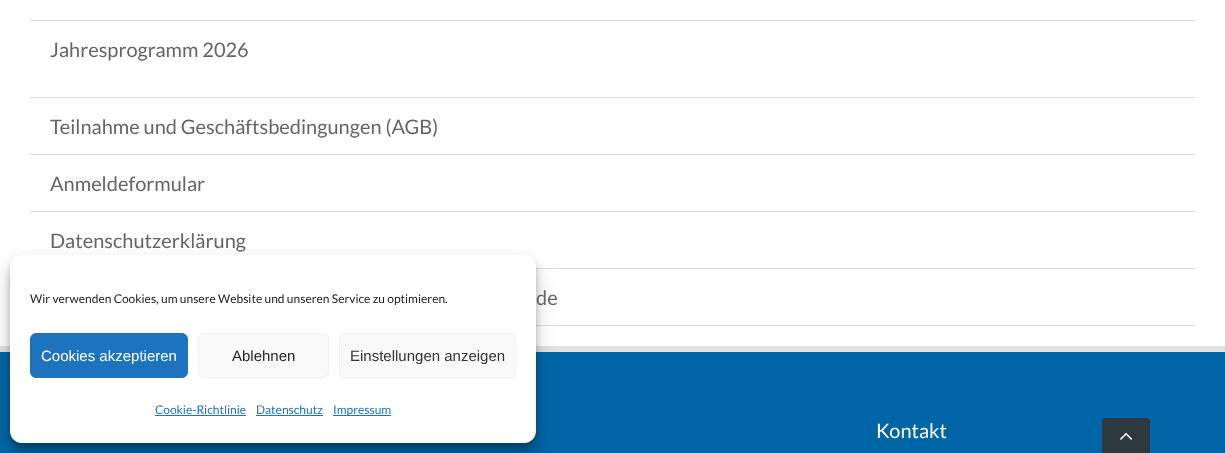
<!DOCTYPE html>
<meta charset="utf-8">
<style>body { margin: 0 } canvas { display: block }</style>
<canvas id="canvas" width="1225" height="453"></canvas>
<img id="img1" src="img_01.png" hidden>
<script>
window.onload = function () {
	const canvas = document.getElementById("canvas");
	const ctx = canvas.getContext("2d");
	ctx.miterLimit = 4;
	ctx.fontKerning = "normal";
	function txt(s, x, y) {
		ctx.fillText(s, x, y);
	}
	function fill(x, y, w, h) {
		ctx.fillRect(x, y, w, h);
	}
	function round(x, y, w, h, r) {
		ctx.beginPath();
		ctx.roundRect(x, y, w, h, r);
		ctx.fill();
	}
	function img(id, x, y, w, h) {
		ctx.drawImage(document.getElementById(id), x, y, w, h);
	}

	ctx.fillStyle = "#FFFFFF";
	fill(0, 0, 1225, 453);
	ctx.fillStyle = "#DCDCDC";
	fill(30, 20, 1165, 1);
	fill(30, 97, 1165, 1);
	fill(30, 154, 1165, 1);
	fill(30, 211, 1165, 1);
	fill(536, 268, 659, 1);
	fill(536, 325, 659, 1);
	ctx.fillStyle = "#0065A6";
	fill(0, 352, 1225, 101);
	ctx.fillStyle = "#E2E2E2";
	fill(0, 346, 1225, 6);
	ctx.fillStyle = "rgba(0, 0, 0, 0.23)";
	ctx.filter = "blur(3px)";
	ctx.beginPath();
	ctx.roundRect(10, 261, 526, 188, 12);
	ctx.fill();
	ctx.filter = "none";
	ctx.fillStyle = "rgba(0, 0, 0, 0.19)";
	ctx.filter = "blur(10px)";
	ctx.beginPath();
	ctx.roundRect(10, 265, 526, 188, 12);
	ctx.fill();
	ctx.filter = "none";
	ctx.fillStyle = "#FFFFFF";
	round(10, 255, 526, 188, 12);
	ctx.fillStyle = "#1E73BE";
	ctx.beginPath();
	ctx.roundRect(30.5, 333.5, 157, 44, 5.5);
	ctx.fill();
	ctx.strokeStyle = "#1E73BE";
	ctx.stroke();
	ctx.fillStyle = "#F9F9F9";
	ctx.beginPath();
	ctx.roundRect(198.5, 333.5, 130, 44, 5.5);
	ctx.fill();
	ctx.strokeStyle = "#F2F2F2";
	ctx.stroke();
	ctx.beginPath();
	ctx.roundRect(339.5, 333.5, 176, 44, 5.5);
	ctx.fill();
	ctx.stroke();
	ctx.fillStyle = "#1E73BE";
	fill(155, 415, 91, 1);
	fill(256, 415, 67, 1);
	fill(333, 415, 58, 1);
	ctx.fillStyle = "#2E383F";
	ctx.beginPath();
	ctx.roundRect(1102, 418, 48, 35, [4, 4, 0, 0]);
	ctx.fill();
	img("img1", 1120, 432, 13, 8);
	ctx.font = "20px Lato";
	ctx.fillStyle = "#646567";
	txt("Jahresprogramm 2026", 50, 57);
	txt("Teilnahme und Geschäftsbedingungen (AGB)", 50, 134);
	txt("Anmeldeformular", 50, 191);
	txt("Datenschutzerklärung", 50, 248);
	txt("de", 536, 305);
	ctx.fillStyle = "#FFFFFF";
	txt("Kontakt", 876, 438);
	ctx.font = "12px Lato";
	ctx.fillStyle = "#222222";
	txt("Wir verwenden Cookies, um unsere Website und unseren Service zu optimieren.", 30, 303);
	ctx.font = "15px Liberation Sans";
	ctx.fillStyle = "#FFFFFF";
	txt("Cookies akzeptieren", 41, 361);
	ctx.fillStyle = "#222222";
	txt("Ablehnen", 232, 361);
	ctx.fillStyle = "#333333";
	txt("Einstellungen anzeigen", 350, 361);
	ctx.font = "12px Lato";
	ctx.fillStyle = "#1E73BE";
	txt("Cookie-Richtlinie", 155, 414);
	txt("Datenschutz", 256, 414);
	txt("Impressum", 333, 414);
};
</script>
